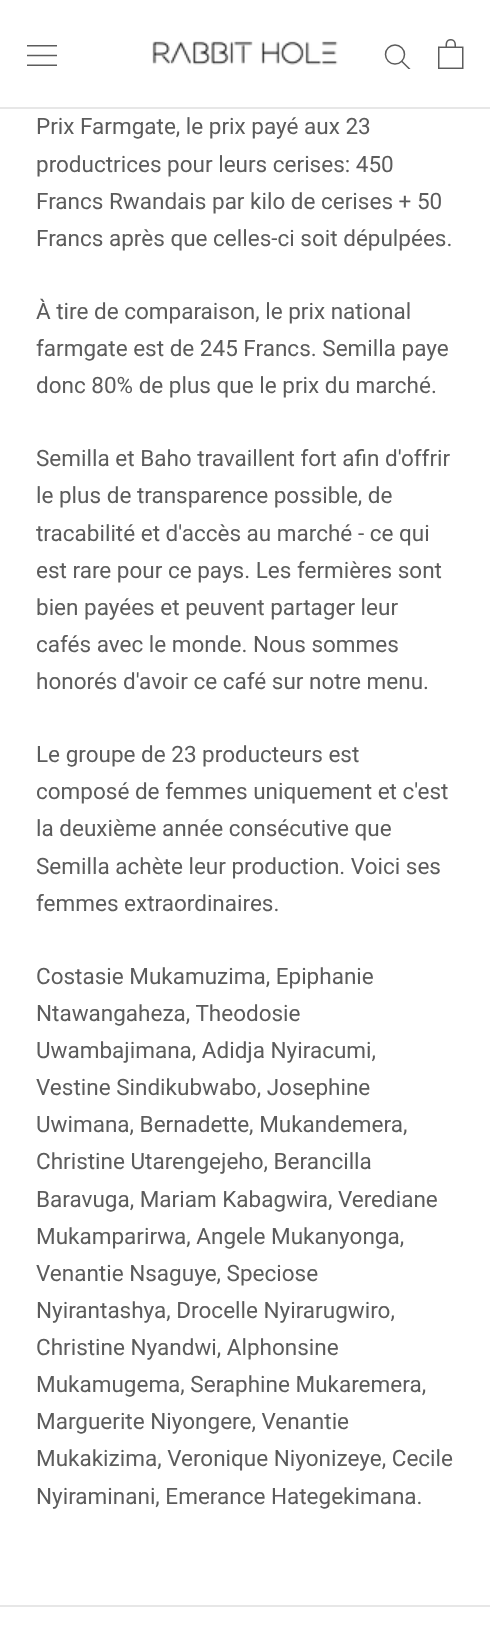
<!DOCTYPE html>
<meta charset="utf-8">
<style>body { margin: 0 } canvas { display: block }</style>
<canvas id="canvas" width="490" height="1651"></canvas>
<img id="img1" src="img_01.png" hidden>
<img id="img2" src="img_02.png" hidden>
<img id="img3" src="img_03.png" hidden>
<script>
window.onload = function () {
	const canvas = document.getElementById("canvas");
	const ctx = canvas.getContext("2d");
	ctx.miterLimit = 4;
	ctx.fontKerning = "normal";
	function txt(s, x, y) {
		ctx.fillText(s, x, y);
	}
	function fill(x, y, w, h) {
		ctx.fillRect(x, y, w, h);
	}
	function img(id, x, y, w, h) {
		ctx.drawImage(document.getElementById(id), x, y, w, h);
	}

	ctx.fillStyle = "#FFFFFF";
	fill(0, 0, 490, 1651);
	ctx.fillStyle = "#E7E7E7";
	fill(0, 107, 490, 2);
	img("img1", 27, 45, 30, 21);
	img("img2", 152, 41, 186, 24);
	ctx.save();
	ctx.beginPath();
	ctx.rect(384, 44, 27, 25);
	ctx.clip();
	ctx.beginPath();
	ctx.moveTo(409.5, 69);
	ctx.lineTo(402, 61.5);
	ctx.strokeStyle = "#5C5C5C";
	ctx.lineWidth = 1.5;
	ctx.lineCap = "square";
	ctx.stroke();
	ctx.restore();
	ctx.beginPath();
	ctx.arc(395, 54.5, 9.5, 0, Math.PI * 2);
	ctx.strokeStyle = "#5C5C5C";
	ctx.lineWidth = 1.5;
	ctx.stroke();
	img("img3", 438, 39, 26, 30);
	fill(0, 1605, 490, 2);
	ctx.font = "22.5px Roboto";
	ctx.fillStyle = "#5C5C5C";
	txt("Prix Farmgate, le prix payé aux 23", 36, 134);
	txt("productrices pour leurs cerises: 450", 36, 172);
	txt("Francs Rwandais par kilo de cerises + 50", 36, 209);
	txt("Francs après que celles-ci soit dépulpées.", 36, 246);
	txt("À tire de comparaison, le prix national", 36, 319);
	txt("farmgate est de 245 Francs. Semilla paye", 36, 356);
	txt("donc 80% de plus que le prix du marché.", 36, 393);
	txt("Semilla et Baho travaillent fort afin d'offrir", 36, 466);
	txt("le plus de transparence possible, de", 36, 503);
	txt("tracabilité et d'accès au marché - ce qui", 36, 541);
	txt("est rare pour ce pays. Les fermières sont", 36, 578);
	txt("bien payées et peuvent partager leur", 36, 615);
	txt("cafés avec le monde. Nous sommes", 36, 652);
	txt("honorés d'avoir ce café sur notre menu.", 36, 689);
	txt("Le groupe de 23 producteurs est", 36, 762);
	txt("composé de femmes uniquement et c'est", 36, 799);
	txt("la deuxième année consécutive que", 36, 836);
	txt("Semilla achète leur production. Voici ses", 36, 874);
	txt("femmes extraordinaires.", 36, 911);
	txt("Costasie Mukamuzima, Epiphanie", 36, 984);
	txt("Ntawangaheza, Theodosie", 36, 1021);
	txt("Uwambajimana, Adidja Nyiracumi,", 36, 1058);
	txt("Vestine Sindikubwabo, Josephine", 36, 1095);
	txt("Uwimana, Bernadette, Mukandemera,", 36, 1132);
	txt("Christine Utarengejeho, Berancilla", 36, 1169);
	txt("Baravuga, Mariam Kabagwira, Verediane", 36, 1207);
	txt("Mukamparirwa, Angele Mukanyonga,", 36, 1244);
	txt("Venantie Nsaguye, Speciose", 36, 1281);
	txt("Nyirantashya, Drocelle Nyirarugwiro,", 36, 1318);
	txt("Christine Nyandwi, Alphonsine", 36, 1355);
	txt("Mukamugema, Seraphine Mukaremera,", 36, 1392);
	txt("Marguerite Niyongere, Venantie", 36, 1429);
	txt("Mukakizima, Veronique Niyonizeye, Cecile", 36, 1466);
	txt("Nyiraminani, Emerance Hategekimana.", 36, 1504);
};
</script>
